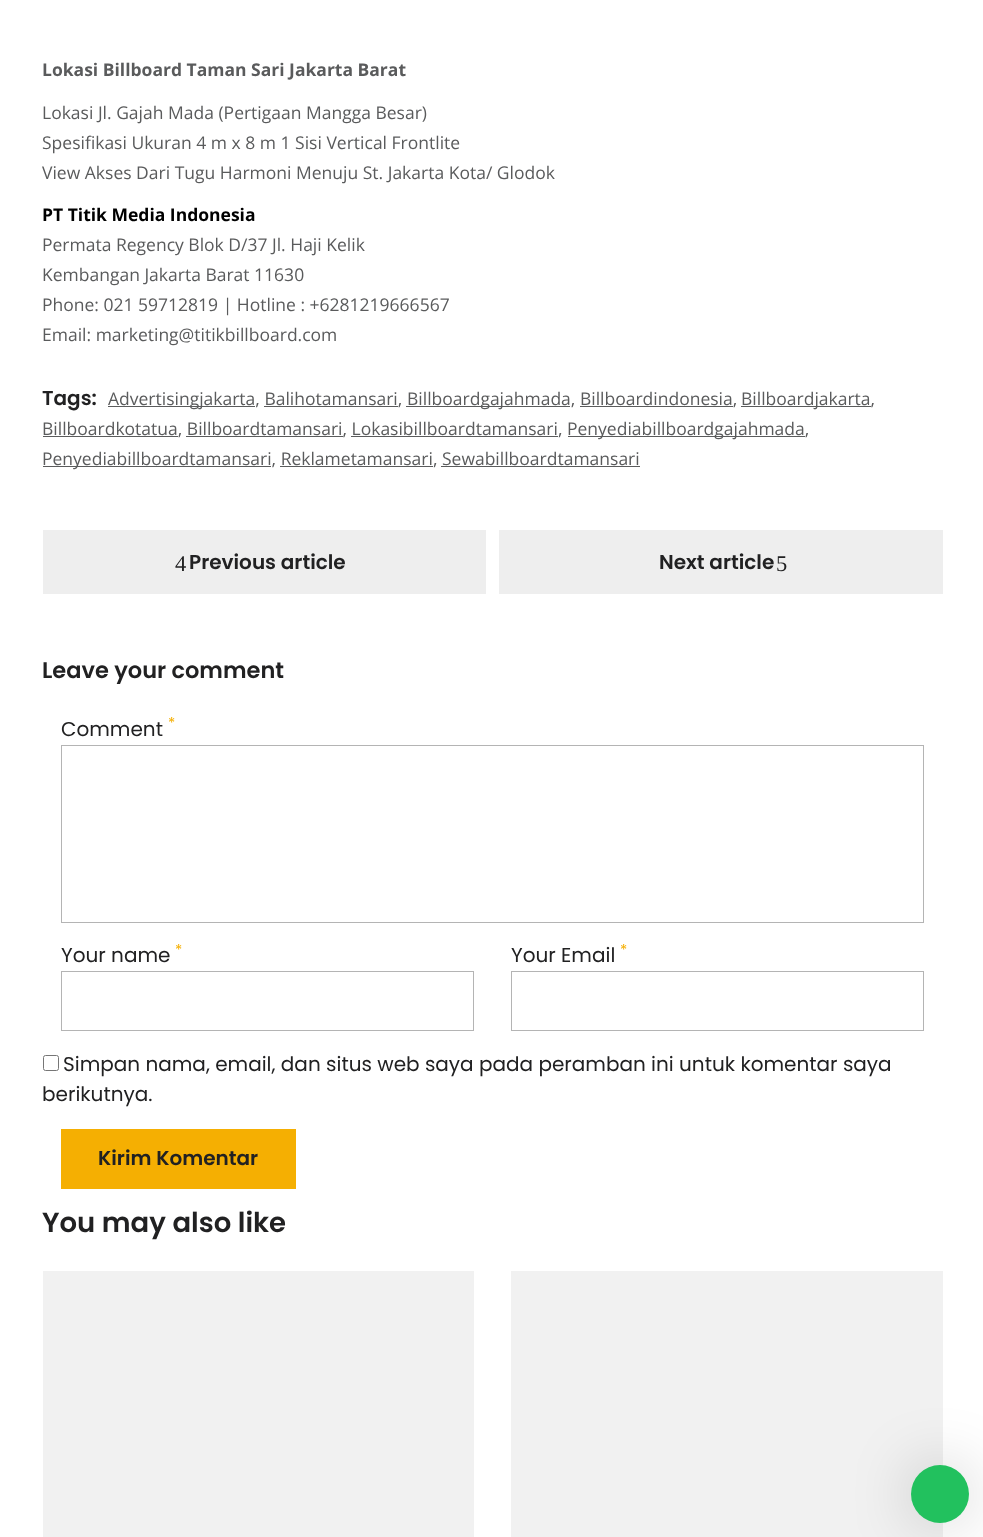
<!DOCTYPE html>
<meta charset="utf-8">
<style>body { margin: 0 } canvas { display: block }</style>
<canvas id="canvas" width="983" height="1537"></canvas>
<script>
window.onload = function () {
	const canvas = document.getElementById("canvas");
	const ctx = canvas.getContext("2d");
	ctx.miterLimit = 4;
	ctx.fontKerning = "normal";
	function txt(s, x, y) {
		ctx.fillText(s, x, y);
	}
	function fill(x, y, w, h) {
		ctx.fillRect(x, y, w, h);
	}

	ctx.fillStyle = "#FFFFFF";
	fill(0, 0, 983, 1537);
	ctx.fillStyle = "#5A5B5C";
	fill(108, 406, 147, 1);
	fill(406, 406, 164, 1);
	fill(741, 406, 130, 1);
	fill(264, 406, 134, 1);
	fill(580, 406, 153, 1);
	fill(43, 436, 135, 1);
	fill(568, 436, 237, 1);
	fill(186, 436, 157, 1);
	fill(351, 436, 207, 1);
	fill(43, 466, 228, 1);
	fill(280, 466, 153, 1);
	fill(441, 466, 199, 1);
	ctx.fillStyle = "#EEEEEE";
	fill(43, 530, 443, 64);
	fill(499, 530, 444, 64);
	ctx.strokeStyle = "#B4B4B4";
	ctx.strokeRect(61.5, 745.5, 862, 177);
	ctx.strokeRect(61.5, 971.5, 412, 59);
	ctx.strokeRect(511.5, 971.5, 412, 59);
	ctx.beginPath();
	ctx.roundRect(43.5, 1055.5, 15, 15, 2);
	ctx.strokeStyle = "#767676";
	ctx.stroke();
	ctx.fillStyle = "#F5AF02";
	fill(61, 1129, 235, 60);
	ctx.fillStyle = "#F1F1F1";
	fill(43, 1271, 431, 266);
	fill(511, 1271, 432, 266);
	ctx.fillStyle = "rgba(0, 0, 0, 0.2)";
	ctx.filter = "blur(31px)";
	ctx.beginPath();
	ctx.roundRect(911, 1465, 58, 58, 29);
	ctx.fill();
	ctx.filter = "none";
	ctx.fillStyle = "#22C15E";
	ctx.beginPath();
	ctx.arc(940, 1494, 29, 0, Math.PI * 2);
	ctx.fill();
	ctx.font = "bold 17.5px Open Sans";
	ctx.fillStyle = "#5A5B5C";
	txt("Lokasi Billboard Taman Sari Jakarta Barat", 42, 76);
	ctx.font = "17.5px Open Sans";
	txt("Lokasi Jl. Gajah Mada (Pertigaan Mangga Besar)", 42, 119);
	txt("Spesifikasi Ukuran 4 m x 8 m 1 Sisi Vertical Frontlite", 42, 149);
	txt("View Akses Dari Tugu Harmoni Menuju St. Jakarta Kota/ Glodok", 42, 179);
	ctx.font = "bold 17.5px Open Sans";
	ctx.fillStyle = "#000000";
	txt("PT Titik Media Indonesia", 42, 221);
	ctx.font = "17.5px Open Sans";
	ctx.fillStyle = "#5A5B5C";
	txt("Permata Regency Blok D/37 Jl. Haji Kelik", 42, 251);
	txt("Kembangan Jakarta Barat 11630", 42, 281);
	txt("Phone: 021 59712819 | Hotline : +6281219666567", 42, 311);
	txt("Email: marketing@titikbillboard.com", 42, 341);
	ctx.font = "600 20px Poppins";
	ctx.fillStyle = "#212122";
	txt("Tags:", 42, 405);
	ctx.font = "17.5px Open Sans";
	ctx.fillStyle = "#5A5B5C";
	txt("Advertisingjakarta, Balihotamansari,", 108, 405);
	txt("Billboardgajahmada, Billboardindonesia,", 407, 405);
	txt("Billboardjakarta,", 741, 405);
	txt("Billboardkotatua, Billboardtamansari, Lokasibillboardtamansari,", 42, 435);
	txt("Penyediabillboardgajahmada,", 567, 435);
	txt("Penyediabillboardtamansari, Reklametamansari, Sewabillboardtamansari", 42, 465);
	ctx.font = "22.5px Liberation Serif";
	ctx.fillStyle = "#212122";
	txt("4", 175, 571);
	ctx.font = "600 20px Poppins";
	txt("Previous article", 189, 569);
	txt("Next article", 659, 569);
	ctx.font = "22.5px Liberation Serif";
	txt("5", 776, 571);
	ctx.font = "600 22.5px Poppins";
	txt("Leave your comment", 42, 678);
	ctx.font = "15px Poppins";
	ctx.fillStyle = "#F5AF02";
	txt("*", 168, 728);
	ctx.font = "20px Poppins";
	ctx.fillStyle = "#212122";
	txt("Comment", 61, 736);
	ctx.font = "15px Poppins";
	ctx.fillStyle = "#F5AF02";
	txt("*", 175, 955);
	ctx.font = "20px Poppins";
	ctx.fillStyle = "#212122";
	txt("Your name", 61, 962);
	txt("Your Email", 511, 962);
	ctx.font = "15px Poppins";
	ctx.fillStyle = "#F5AF02";
	txt("*", 620, 955);
	ctx.font = "20px Poppins";
	ctx.fillStyle = "#212122";
	txt("Simpan nama, email, dan situs web saya pada peramban ini untuk komentar saya", 63, 1071);
	txt("berikutnya.", 42, 1101);
	ctx.font = "600 20px Poppins";
	txt("Kirim Komentar", 98, 1165);
	ctx.font = "600 27.5px Poppins";
	txt("You may also like", 42, 1232);
};
</script>
